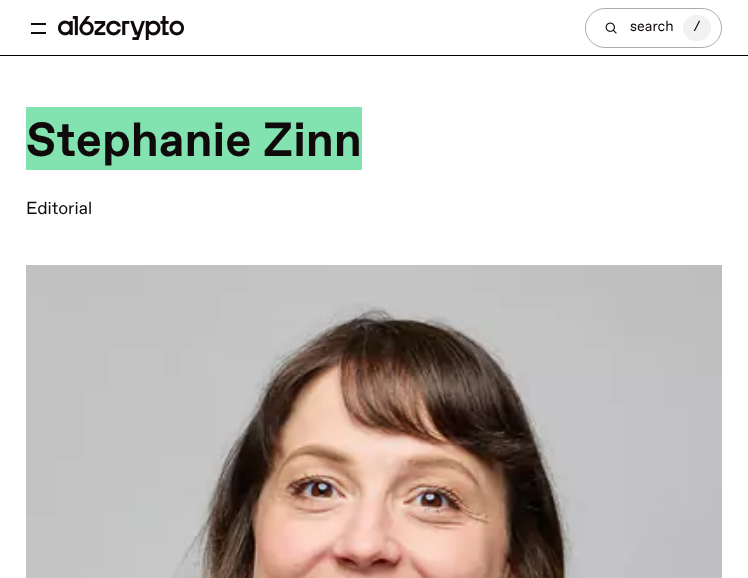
<!DOCTYPE html>
<meta charset="utf-8">
<style>body { margin: 0 } canvas { display: block }</style>
<canvas id="canvas" width="748" height="578"></canvas>
<img id="img1" src="img_01.png" hidden>
<img id="img2" src="img_02.png" hidden>
<img id="img3" src="img_03.png" hidden>
<script>
window.onload = function () {
	const canvas = document.getElementById("canvas");
	const ctx = canvas.getContext("2d");
	ctx.miterLimit = 4;
	ctx.fontKerning = "normal";
	function txt(s, x, y) {
		ctx.fillText(s, x, y);
	}
	function fill(x, y, w, h) {
		ctx.fillRect(x, y, w, h);
	}
	function round(x, y, w, h, r) {
		ctx.beginPath();
		ctx.roundRect(x, y, w, h, r);
		ctx.fill();
	}
	function img(id, x, y, w, h) {
		ctx.drawImage(document.getElementById(id), x, y, w, h);
	}

	ctx.fillStyle = "#FFFFFF";
	fill(0, 0, 748, 578);
	ctx.fillStyle = "#000000";
	fill(0, 55, 748, 1);
	ctx.fillStyle = "#100A0A";
	fill(31, 23, 15, 2);
	fill(31, 32, 15, 2);
	img("img1", 58, 16, 126, 24);
	ctx.beginPath();
	ctx.roundRect(585.5, 8.5, 136, 39, 19.5);
	ctx.strokeStyle = "#ABABAB";
	ctx.stroke();
	img("img2", 605, 22, 12, 12);
	ctx.fillStyle = "#F2F2F2";
	round(683, 15, 28, 26, 13);
	ctx.fillStyle = "#82E3B0";
	fill(26, 107, 336, 63);
	img("img3", 26, 265, 696, 313);
	ctx.font = "300 14.5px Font";
	ctx.fillStyle = "#100A0A";
	txt("search", 630, 31);
	ctx.font = "italic 300 14.5px Font";
	txt("/", 694, 31);
	ctx.font = "bold 48px Font";
	txt("Stephanie Zinn", 26, 156);
	ctx.font = "300 17.5px Font";
	txt("Editorial", 26, 214);
};
</script>
